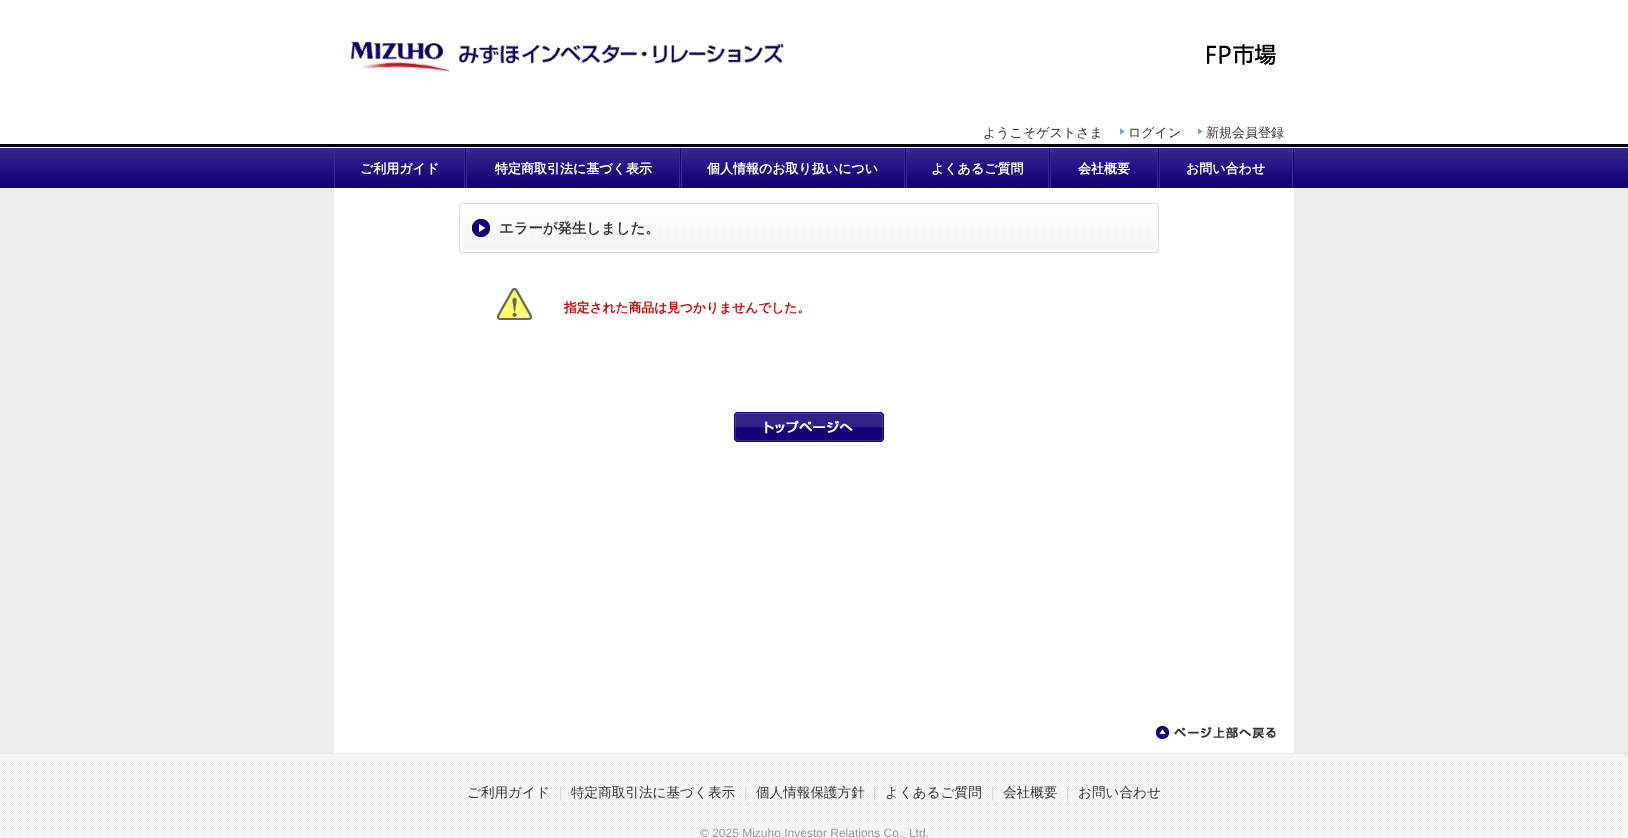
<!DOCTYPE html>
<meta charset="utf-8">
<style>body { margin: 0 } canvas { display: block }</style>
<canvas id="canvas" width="1628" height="838"></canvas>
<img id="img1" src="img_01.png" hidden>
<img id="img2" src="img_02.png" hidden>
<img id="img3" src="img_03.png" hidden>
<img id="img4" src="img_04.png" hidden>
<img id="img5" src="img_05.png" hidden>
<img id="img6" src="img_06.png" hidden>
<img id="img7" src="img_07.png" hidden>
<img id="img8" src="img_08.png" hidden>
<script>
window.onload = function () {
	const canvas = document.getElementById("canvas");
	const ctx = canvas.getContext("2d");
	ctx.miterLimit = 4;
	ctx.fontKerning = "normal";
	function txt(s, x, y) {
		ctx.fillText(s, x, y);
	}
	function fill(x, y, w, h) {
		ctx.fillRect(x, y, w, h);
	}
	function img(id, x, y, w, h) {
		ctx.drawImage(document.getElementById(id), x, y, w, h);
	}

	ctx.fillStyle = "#EDEDED";
	fill(0, 0, 1628, 838);
	ctx.fillStyle = "#FFFFFF";
	fill(0, 0, 1628, 144);
	img("img1", 350, 41, 926, 31);
	img("img2", 1120, 128, 5, 7);
	img("img2", 1198, 128, 5, 7);
	img("img3", 0, 144, 1628, 44);
	ctx.fillStyle = "#140077";
	fill(465, 148, 1, 40);
	ctx.fillStyle = "#3B2A90";
	fill(334, 148, 1, 40);
	fill(464, 148, 1, 40);
	ctx.fillStyle = "#140077";
	fill(680, 148, 1, 40);
	ctx.fillStyle = "#3B2A90";
	fill(466, 148, 1, 40);
	fill(679, 148, 1, 40);
	ctx.fillStyle = "#140077";
	fill(905, 148, 1, 40);
	ctx.fillStyle = "#3B2A90";
	fill(681, 148, 1, 40);
	fill(904, 148, 1, 40);
	ctx.fillStyle = "#140077";
	fill(1049, 148, 1, 40);
	ctx.fillStyle = "#3B2A90";
	fill(906, 148, 1, 40);
	fill(1048, 148, 1, 40);
	ctx.fillStyle = "#140077";
	fill(1158, 148, 1, 40);
	ctx.fillStyle = "#3B2A90";
	fill(1050, 148, 1, 40);
	fill(1157, 148, 1, 40);
	ctx.fillStyle = "#140077";
	fill(1293, 148, 1, 40);
	ctx.fillStyle = "#3B2A90";
	fill(1159, 148, 1, 40);
	fill(1292, 148, 1, 40);
	ctx.fillStyle = "#FFFFFF";
	fill(334, 188, 960, 565);
	img("img4", 459, 203, 700, 50);
	img("img5", 497, 288, 35, 32);
	img("img6", 734, 412, 150, 30);
	img("img7", 0, 753, 1628, 85);
	img("img8", 1156, 726, 120, 13);
	ctx.font = "500 13px WenQuanYi Zen Hei";
	ctx.fillStyle = "#333333";
	txt("ようこそゲストさま", 983, 137);
	txt("ログイン", 1128, 137);
	txt("新規会員登録", 1206, 137);
	ctx.font = "bold 13px WenQuanYi Zen Hei";
	ctx.fillStyle = "#FFFFFF";
	txt("ご利用ガイド", 360, 173);
	txt("特定商取引法に基づく表示", 495, 173);
	txt("個人情報のお取り扱いについ", 707, 173);
	txt("よくあるご質問", 931, 173);
	txt("会社概要", 1078, 173);
	txt("お問い合わせ", 1186, 173);
	ctx.font = "bold 14.4px WenQuanYi Zen Hei";
	ctx.fillStyle = "#333333";
	txt("エラーが発生しました。", 499, 233);
	ctx.font = "bold 12.75px WenQuanYi Zen Hei";
	ctx.fillStyle = "#CC0000";
	txt("指定された商品は見つかりませんでした。", 564, 312);
	ctx.font = "500 13.6px WenQuanYi Zen Hei";
	ctx.fillStyle = "#333333";
	txt("ご利用ガイド", 467, 797);
	ctx.fillStyle = "#CCCCCC";
	txt("｜", 554, 797);
	ctx.fillStyle = "#333333";
	txt("特定商取引法に基づく表示", 571, 797);
	ctx.fillStyle = "#CCCCCC";
	txt("｜", 739, 797);
	ctx.fillStyle = "#333333";
	txt("個人情報保護方針", 756, 797);
	ctx.fillStyle = "#CCCCCC";
	txt("｜", 868, 797);
	ctx.fillStyle = "#333333";
	txt("よくあるご質問", 885, 797);
	ctx.fillStyle = "#CCCCCC";
	txt("｜", 986, 797);
	ctx.fillStyle = "#333333";
	txt("会社概要", 1003, 797);
	ctx.fillStyle = "#CCCCCC";
	txt("｜", 1061, 797);
	ctx.fillStyle = "#333333";
	txt("お問い合わせ", 1078, 797);
	ctx.font = "12px Liberation Sans";
	ctx.fillStyle = "#999999";
	txt("© 2025 Mizuho Investor Relations Co., Ltd.", 700, 837);
};
</script>
